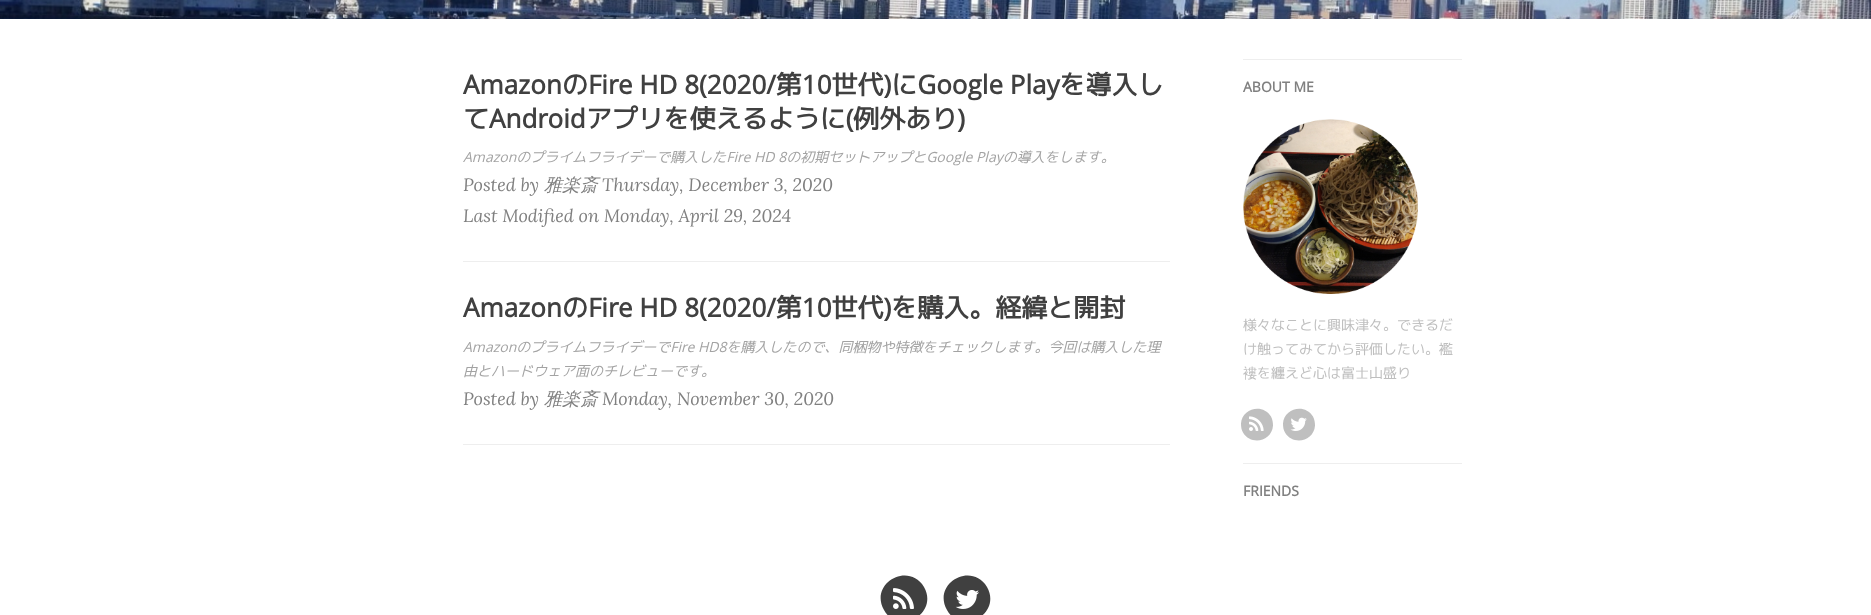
<!DOCTYPE html>
<meta charset="utf-8">
<style>body { margin: 0 } canvas { display: block }</style>
<canvas id="canvas" width="1871" height="615"></canvas>
<img id="img1" src="img_01.png" hidden>
<img id="img2" src="img_02.png" hidden>
<img id="img3" src="img_03.png" hidden>
<img id="img4" src="img_04.png" hidden>
<img id="img5" src="img_05.png" hidden>
<img id="img6" src="img_06.png" hidden>
<script>
window.onload = function () {
	const canvas = document.getElementById("canvas");
	const ctx = canvas.getContext("2d");
	ctx.miterLimit = 4;
	ctx.fontKerning = "normal";
	function txt(s, x, y) {
		ctx.fillText(s, x, y);
	}
	function fill(x, y, w, h) {
		ctx.fillRect(x, y, w, h);
	}
	function img(id, x, y, w, h) {
		ctx.drawImage(document.getElementById(id), x, y, w, h);
	}

	ctx.fillStyle = "#FFFFFF";
	fill(0, 0, 1871, 615);
	img("img1", 0, 0, 1871, 19);
	ctx.fillStyle = "#EEEEEE";
	fill(463, 261, 707, 1);
	fill(463, 444, 707, 1);
	fill(1243, 59, 219, 1);
	img("img2", 1243, 119, 175, 175);
	ctx.fillStyle = "#BFBFBF";
	ctx.beginPath();
	ctx.moveTo(1271, 416.5);
	ctx.bezierCurveTo(1272.5, 419.5, 1273, 422.5, 1273, 425.5);
	ctx.bezierCurveTo(1272, 441.5, 1251, 446, 1243, 432.5);
	ctx.bezierCurveTo(1241.5, 430, 1241, 427, 1241, 423.5);
	ctx.bezierCurveTo(1242, 408, 1263, 403, 1271, 416.5);
	ctx.closePath();
	ctx.fill();
	img("img3", 1249, 416, 15, 15);
	ctx.beginPath();
	ctx.moveTo(1313, 416.5);
	ctx.bezierCurveTo(1314.5, 419.5, 1315, 422.5, 1315, 425.5);
	ctx.bezierCurveTo(1314, 441.5, 1293, 446, 1285, 432.5);
	ctx.bezierCurveTo(1283.5, 430, 1283, 427, 1283, 423.5);
	ctx.bezierCurveTo(1284, 408, 1305, 403, 1313, 416.5);
	ctx.closePath();
	ctx.fill();
	img("img4", 1290, 417, 17, 14);
	ctx.fillStyle = "#EEEEEE";
	fill(1243, 463, 219, 1);
	ctx.fillStyle = "#404040";
	ctx.beginPath();
	ctx.moveTo(924, 587);
	ctx.bezierCurveTo(939, 613, 899, 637, 884, 610);
	ctx.bezierCurveTo(869, 584, 908, 561, 924, 587);
	ctx.closePath();
	ctx.fill();
	img("img5", 893, 588, 21, 21);
	ctx.beginPath();
	ctx.moveTo(987, 587);
	ctx.bezierCurveTo(1002, 613, 962, 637, 947, 610);
	ctx.bezierCurveTo(932, 584, 971, 561, 987, 587);
	ctx.closePath();
	ctx.fill();
	img("img6", 955, 590, 24, 19);
	ctx.font = "bold 26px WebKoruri";
	txt("AmazonのFire HD 8(2020/第10世代)にGoogle Playを導入し", 463, 94);
	txt("てAndroidアプリを使えるように(例外あり)", 463, 128);
	ctx.font = "italic 14px WebKoruri";
	ctx.fillStyle = "#A3A3A3";
	txt("Amazonのプライムフライデーで購入したFire HD 8の初期セットアップとGoogle Playの導入をします。", 463, 162);
	ctx.font = "italic 18px Lora";
	ctx.fillStyle = "#808080";
	txt("Posted by", 463, 191);
	ctx.font = "italic 500 18px WenQuanYi Zen Hei";
	txt("雅楽斎", 544, 191);
	ctx.font = "italic 18px Lora";
	txt("Thursday, December 3, 2020", 602, 191);
	txt("Last Modified on Monday, April 29, 2024", 463, 222);
	ctx.font = "bold 26px WebKoruri";
	ctx.fillStyle = "#404040";
	txt("AmazonのFire HD 8(2020/第10世代)を購入。経緯と開封", 463, 317);
	ctx.font = "italic 14px WebKoruri";
	ctx.fillStyle = "#A3A3A3";
	txt("AmazonのプライムフライデーでFire HD8を購入したので、同梱物や特徴をチェックします。今回は購入した理", 463, 352);
	txt("由とハードウェア面のチレビューです。", 463, 376);
	ctx.font = "italic 18px Lora";
	ctx.fillStyle = "#808080";
	txt("Posted by", 463, 405);
	ctx.font = "italic 500 18px WenQuanYi Zen Hei";
	txt("雅楽斎", 544, 405);
	ctx.font = "italic 18px Lora";
	txt("Monday, November 30, 2020", 602, 405);
	ctx.font = "bold 14px WebKoruri";
	txt("ABOUT ME", 1243, 92);
	ctx.font = "14px WebKoruri";
	ctx.fillStyle = "#BFBFBF";
	txt("様々なことに興味津々。できるだ", 1243, 330);
	txt("け触ってみてから評価したい。襤", 1243, 354);
	ctx.font = "500 14px WenQuanYi Zen Hei";
	txt("褸", 1243, 378);
	ctx.font = "14px WebKoruri";
	txt("を纏えど心は富士山盛り", 1257, 378);
	ctx.font = "bold 14px WebKoruri";
	ctx.fillStyle = "#808080";
	txt("FRIENDS", 1243, 496);
};
</script>
